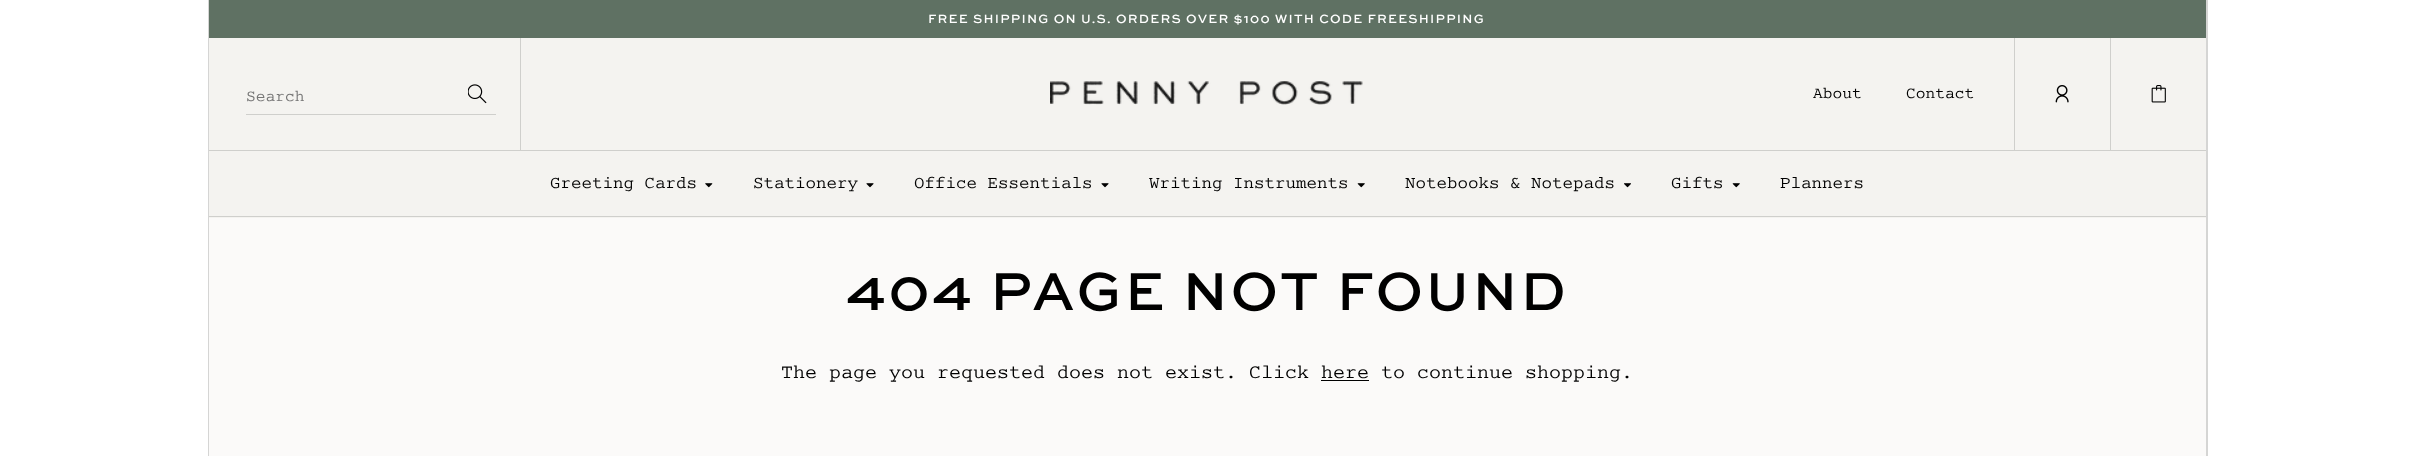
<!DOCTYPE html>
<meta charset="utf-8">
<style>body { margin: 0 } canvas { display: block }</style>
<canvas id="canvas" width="2413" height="456"></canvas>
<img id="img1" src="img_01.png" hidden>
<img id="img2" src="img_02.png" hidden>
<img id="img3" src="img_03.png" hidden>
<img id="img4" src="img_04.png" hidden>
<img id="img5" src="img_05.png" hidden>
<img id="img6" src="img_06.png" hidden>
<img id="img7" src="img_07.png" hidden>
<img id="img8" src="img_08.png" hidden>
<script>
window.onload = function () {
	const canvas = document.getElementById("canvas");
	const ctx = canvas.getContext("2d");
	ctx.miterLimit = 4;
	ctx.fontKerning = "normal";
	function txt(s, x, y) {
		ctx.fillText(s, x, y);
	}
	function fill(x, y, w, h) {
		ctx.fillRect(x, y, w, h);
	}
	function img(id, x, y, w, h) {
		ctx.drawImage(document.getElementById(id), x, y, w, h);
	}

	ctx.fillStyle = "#FFFFFF";
	fill(0, 0, 2413, 456);
	ctx.fillStyle = "#FBFAF9";
	fill(209, 218, 1997, 238);
	ctx.fillStyle = "#D5D5D4";
	ctx.beginPath();
	ctx.moveTo(2208, 0);
	ctx.lineTo(2208, 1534);
	ctx.lineTo(2206, 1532);
	ctx.lineTo(2206, 0);
	ctx.closePath();
	ctx.fill();
	ctx.beginPath();
	ctx.moveTo(208, 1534);
	ctx.lineTo(208, 0);
	ctx.lineTo(209, 0);
	ctx.lineTo(209, 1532);
	ctx.closePath();
	ctx.fill();
	ctx.fillStyle = "#5F7163";
	fill(209, 0, 1997, 38);
	ctx.fillStyle = "#F4F3F0";
	fill(209, 38, 1997, 112);
	ctx.fillStyle = "#CFCFCC";
	fill(520, 38, 1, 112);
	fill(246, 114, 250, 1);
	img("img1", 468, 84, 19, 20);
	img("img2", 1050, 81, 313, 24);
	fill(2014, 38, 1, 112);
	img("img3", 2055, 85, 14, 18);
	fill(2110, 38, 1, 112);
	img("img4", 2151, 85, 15, 18);
	ctx.fillStyle = "#F4F3F0";
	fill(209, 151, 1997, 67);
	ctx.fillStyle = "#CFCFCC";
	fill(209, 150, 1997, 1);
	fill(209, 216, 1997, 1);
	img("img5", 705, 183, 8, 5);
	img("img6", 866, 183, 8, 5);
	img("img6", 1101, 183, 8, 5);
	img("img7", 1357, 183, 8, 5);
	img("img8", 1624, 183, 7, 5);
	img("img7", 1732, 183, 8, 5);
	ctx.fillStyle = "#000000";
	fill(1321, 380, 48, 1);
	ctx.letterSpacing = "1.25px";
	ctx.font = "500 12.5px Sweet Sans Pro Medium";
	ctx.fillStyle = "#FFFFFF";
	txt("FREE SHIPPING ON U.S. ORDERS OVER $100 WITH CODE FREESHIPPING", 928, 23);
	ctx.letterSpacing = "0px";
	ctx.font = "16.25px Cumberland";
	ctx.fillStyle = "#757575";
	txt("Search", 246, 101);
	ctx.fillStyle = "#000000";
	txt("About", 1813, 98);
	txt("Contact", 1906, 98);
	ctx.font = "17.5px Cumberland";
	txt("Greeting Cards", 550, 188);
	txt("Stationery", 753, 188);
	txt("Office Essentials", 914, 188);
	txt("Writing Instruments", 1149, 188);
	txt("Notebooks & Notepads", 1405, 188);
	txt("Gifts", 1671, 188);
	txt("Planners", 1780, 188);
	ctx.letterSpacing = "2.5px";
	ctx.font = "500 56.25px Sweet Sans Pro Medium";
	txt("404 PAGE NOT FOUND", 846, 310);
	ctx.letterSpacing = "0px";
	ctx.font = "20px Cumberland";
	txt("The page you requested does not exist. Click here to continue shopping.", 781, 378);
};
</script>
